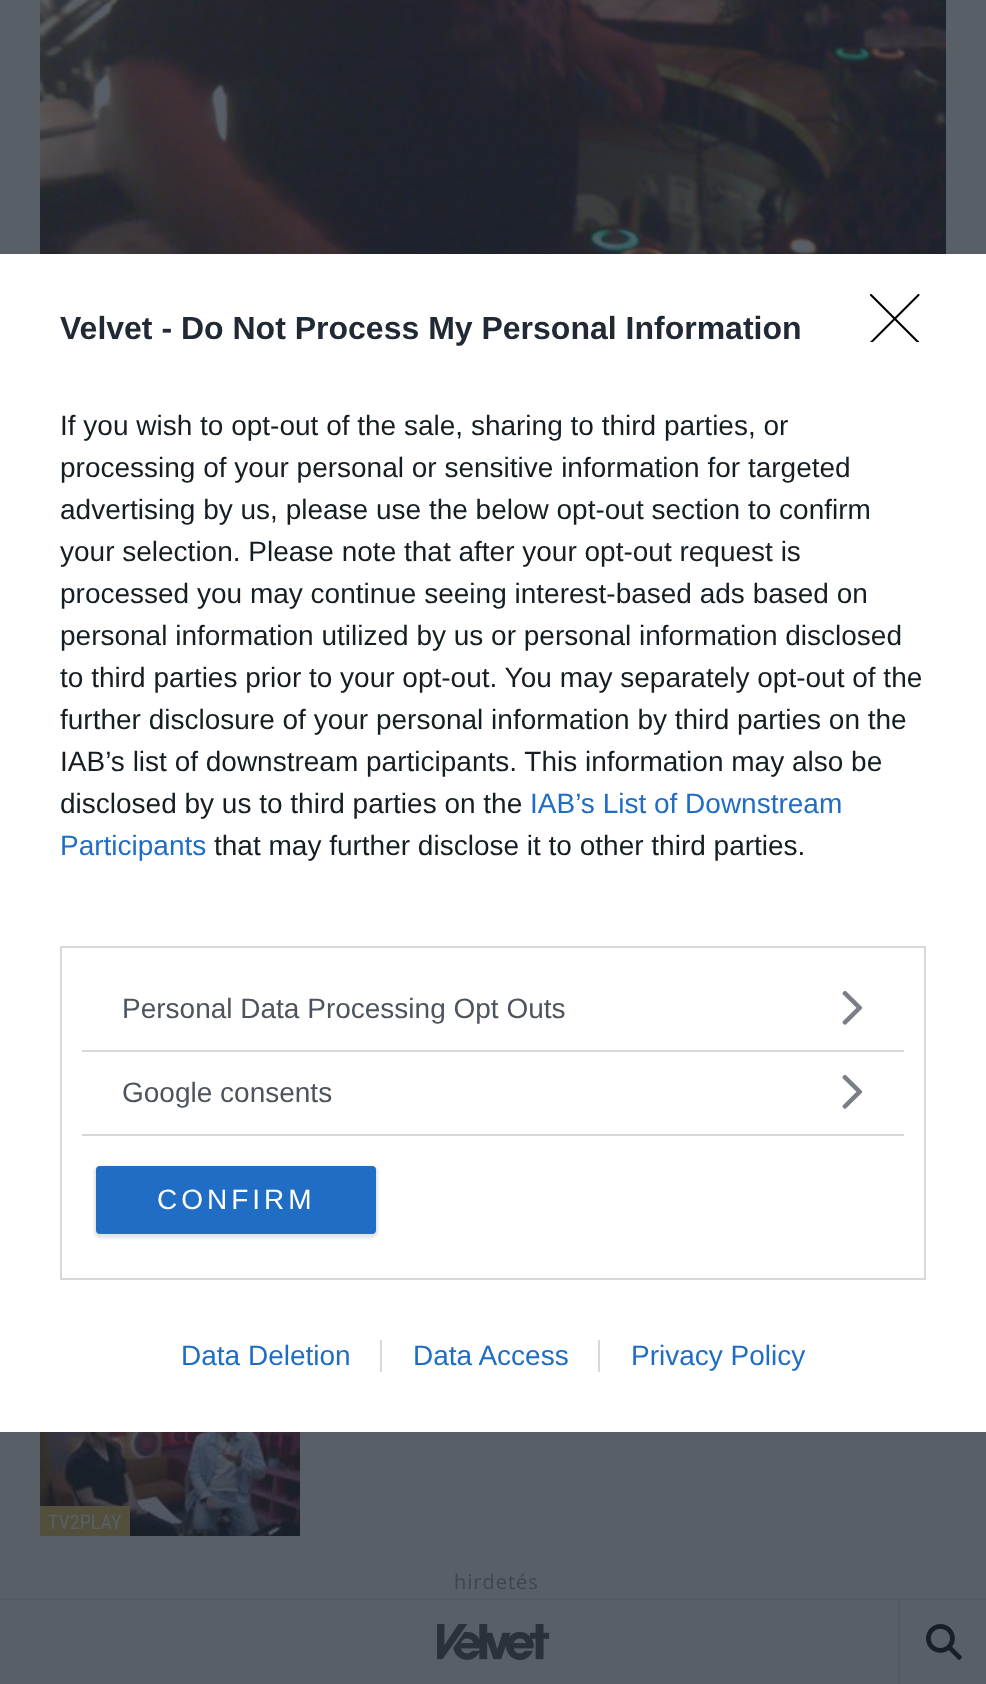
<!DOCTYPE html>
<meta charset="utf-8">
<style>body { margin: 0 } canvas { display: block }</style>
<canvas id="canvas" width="986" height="1684"></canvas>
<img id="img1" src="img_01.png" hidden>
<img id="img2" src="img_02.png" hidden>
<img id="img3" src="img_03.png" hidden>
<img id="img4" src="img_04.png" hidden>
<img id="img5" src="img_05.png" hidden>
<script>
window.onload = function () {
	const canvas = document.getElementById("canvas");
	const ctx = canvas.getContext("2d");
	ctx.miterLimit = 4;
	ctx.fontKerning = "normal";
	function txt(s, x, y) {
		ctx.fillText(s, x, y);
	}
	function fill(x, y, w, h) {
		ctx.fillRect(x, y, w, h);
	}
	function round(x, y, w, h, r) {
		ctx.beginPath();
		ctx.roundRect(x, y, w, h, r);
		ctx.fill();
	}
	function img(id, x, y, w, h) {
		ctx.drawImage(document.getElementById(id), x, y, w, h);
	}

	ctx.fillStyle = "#595F67";
	fill(0, 0, 986, 1684);
	ctx.fillStyle = "#FFFFFF";
	fill(0, 254, 986, 1178);
	ctx.save();
	ctx.beginPath();
	ctx.rect(870, 294, 50, 48);
	ctx.clip();
	ctx.beginPath();
	ctx.moveTo(871, 295);
	ctx.lineTo(918.5, 342.5);
	ctx.moveTo(918.5, 295);
	ctx.lineTo(871, 342.5);
	ctx.strokeStyle = "#000000";
	ctx.lineWidth = 2.1;
	ctx.lineCap = "round";
	ctx.lineJoin = "round";
	ctx.stroke();
	ctx.restore();
	ctx.strokeStyle = "#D8D8D8";
	ctx.lineWidth = 2;
	ctx.strokeRect(61, 947, 864, 332);
	ctx.fillStyle = "#D8D8D8";
	fill(82, 1050, 822, 2);
	img("img1", 842, 990, 21, 35);
	fill(82, 1134, 822, 2);
	img("img1", 842, 1074, 21, 35);
	ctx.fillStyle = "rgba(0, 0, 0, 0.1)";
	ctx.filter = "blur(1px)";
	ctx.beginPath();
	ctx.roundRect(94, 1166, 284, 72, 6);
	ctx.fill();
	ctx.filter = "none";
	ctx.fillStyle = "#206DC5";
	round(96, 1166, 280, 68, 4);
	ctx.fillStyle = "#D8D8D8";
	fill(380, 1340, 2, 32);
	fill(598, 1340, 2, 32);
	img("img2", 40, 0, 906, 254);
	img("img3", 40, 1432, 260, 104);
	ctx.fillStyle = "#52503C";
	fill(40, 1506, 90, 30);
	ctx.fillStyle = "#545A62";
	fill(0, 1598, 986, 2);
	img("img4", 437, 1624, 113, 36);
	fill(898, 1600, 2, 84);
	img("img5", 926, 1624, 36, 36);
	ctx.font = "bold 32px Liberation Sans";
	ctx.fillStyle = "#212934";
	txt("Velvet - Do Not Process My Personal Information", 60, 339);
	ctx.font = "28px Liberation Sans";
	ctx.fillStyle = "#141E23";
	txt("If you wish to opt-out of the sale, sharing to third parties, or", 60, 435);
	txt("processing of your personal or sensitive information for targeted", 60, 477);
	txt("advertising by us, please use the below opt-out section to confirm", 60, 519);
	txt("your selection. Please note that after your opt-out request is", 60, 561);
	txt("processed you may continue seeing interest-based ads based on", 60, 603);
	txt("personal information utilized by us or personal information disclosed", 60, 645);
	txt("to third parties prior to your opt-out. You may separately opt-out of the", 60, 687);
	txt("further disclosure of your personal information by third parties on the", 60, 729);
	txt("IAB’s list of downstream participants. This information may also be", 60, 771);
	txt("disclosed by us to third parties on the", 60, 813);
	ctx.fillStyle = "#206DC5";
	txt("IAB’s List of Downstream", 530, 813);
	txt("Participants", 60, 855);
	ctx.fillStyle = "#141E23";
	txt("that may further disclose it to other third parties.", 214, 855);
	ctx.fillStyle = "#4D545D";
	txt("Personal Data Processing Opt Outs", 122, 1018);
	txt("Google consents", 122, 1102);
	ctx.letterSpacing = "4px";
	ctx.fillStyle = "#FFFFFF";
	txt("CONFIRM", 157, 1209);
	ctx.letterSpacing = "0px";
	ctx.fillStyle = "#206DC5";
	txt("Data Deletion", 181, 1365);
	txt("Data Access", 413, 1365);
	txt("Privacy Policy", 631, 1365);
	ctx.font = "20px Roboto Condensed";
	ctx.fillStyle = "#595F67";
	txt("TV2PLAY", 48, 1529);
	ctx.letterSpacing = "1px";
	ctx.font = "20px Open Sans";
	ctx.fillStyle = "#3F454D";
	txt("hirdetés", 454, 1589);
};
</script>
